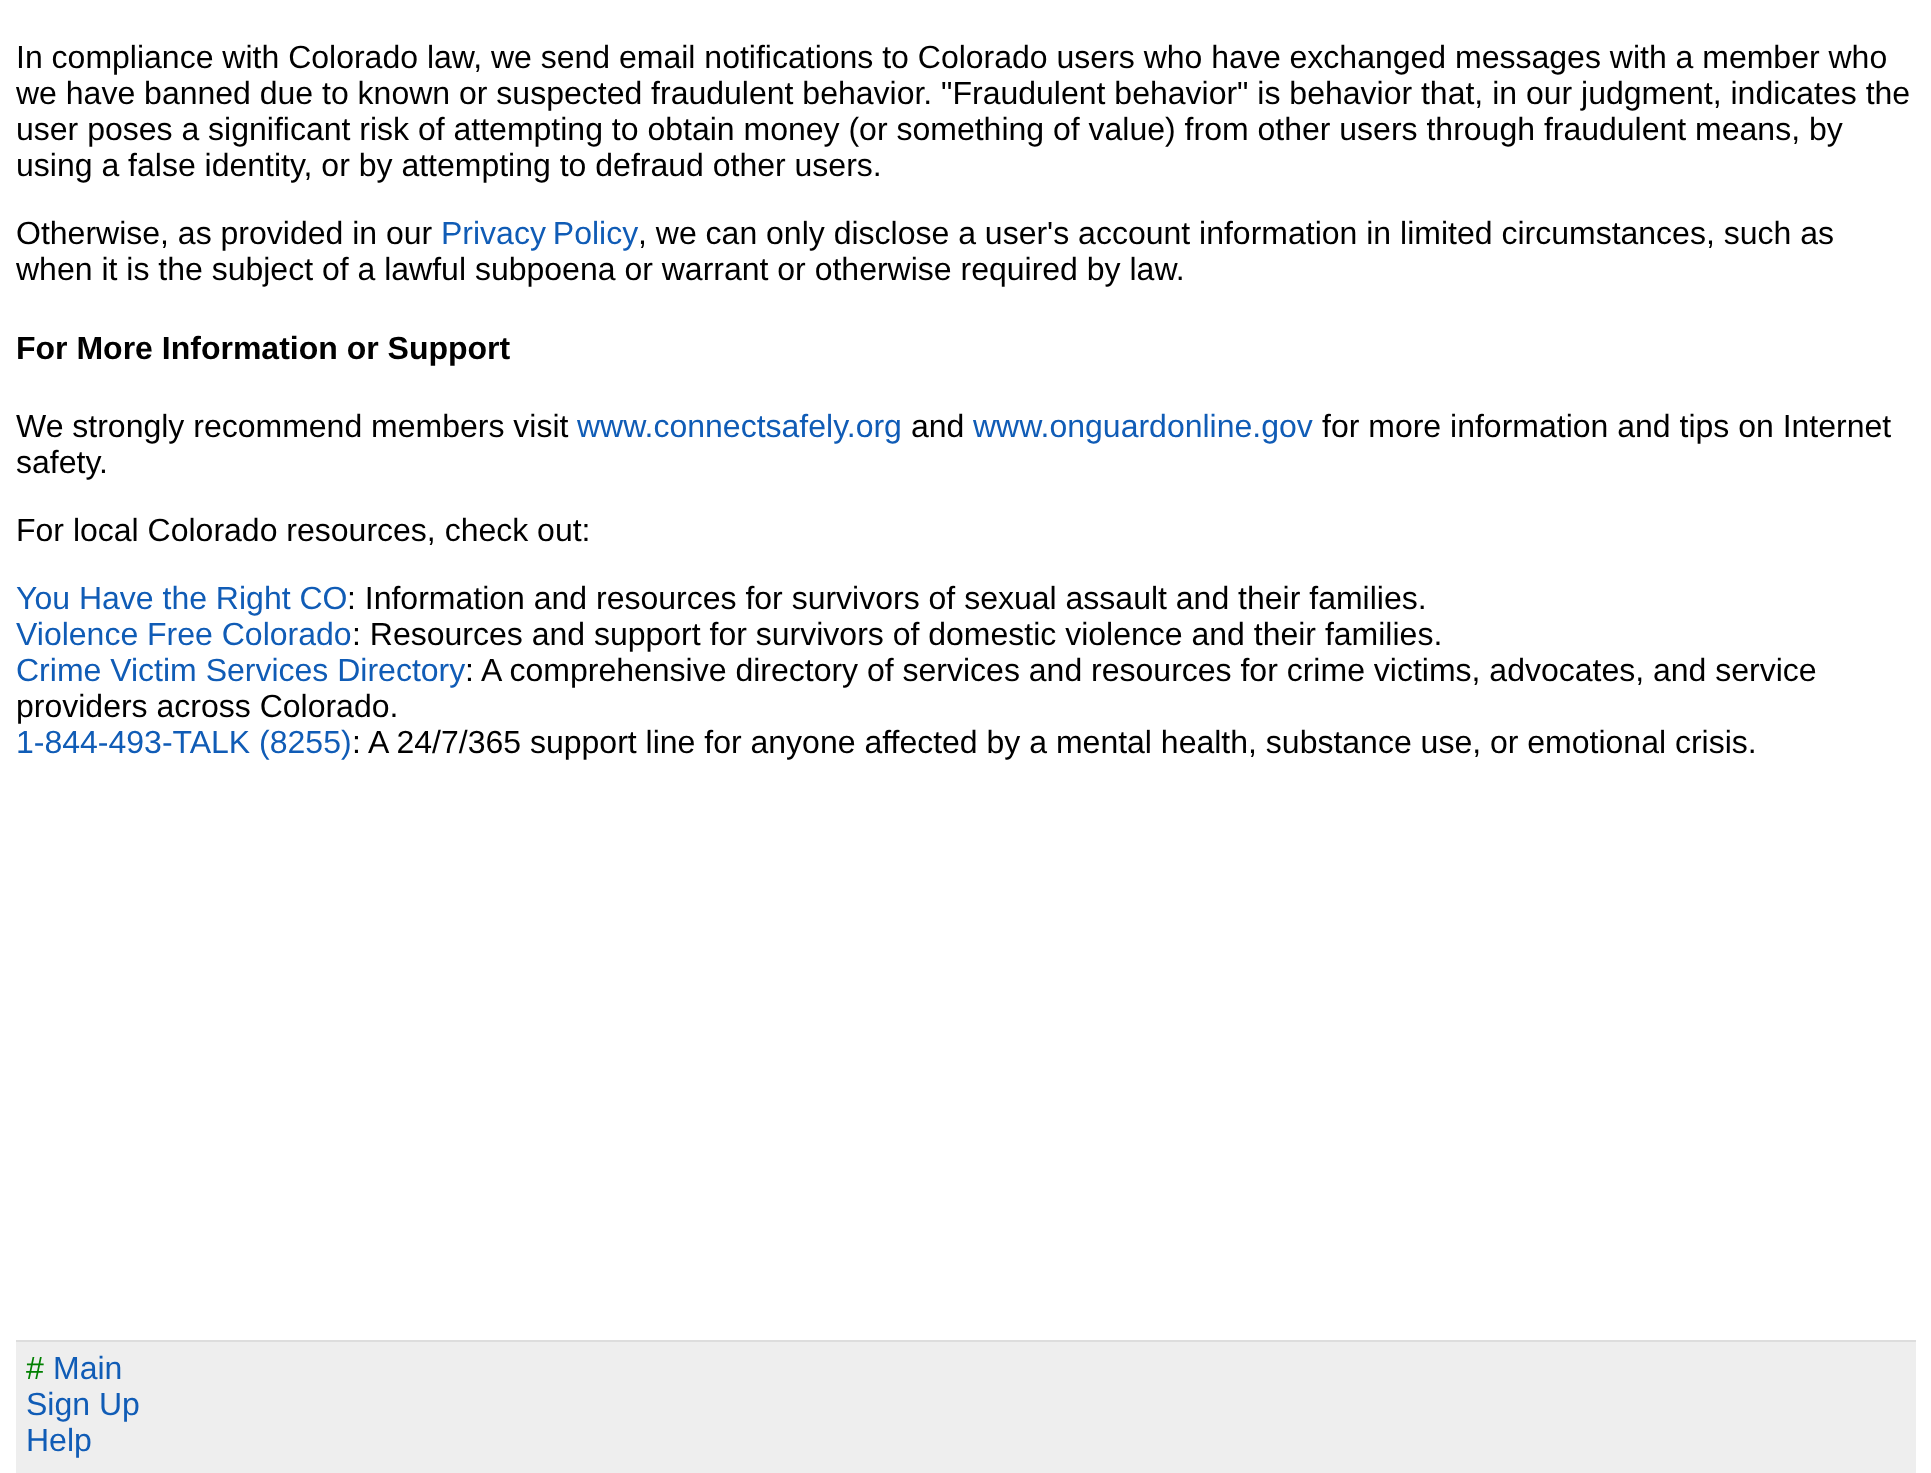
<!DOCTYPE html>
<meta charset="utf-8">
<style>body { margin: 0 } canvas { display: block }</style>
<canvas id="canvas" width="1931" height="1473"></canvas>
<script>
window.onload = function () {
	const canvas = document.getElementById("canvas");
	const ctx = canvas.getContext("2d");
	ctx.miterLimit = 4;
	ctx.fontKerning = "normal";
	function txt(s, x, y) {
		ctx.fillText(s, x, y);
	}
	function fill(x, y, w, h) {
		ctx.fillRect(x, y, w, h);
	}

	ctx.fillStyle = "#FFFFFF";
	fill(0, 0, 1931, 1473);
	ctx.fillStyle = "#EEEEEE";
	fill(16, 1342, 1900, 131);
	ctx.fillStyle = "#DDDDDD";
	fill(16, 1340, 1900, 2);
	ctx.font = "32px Liberation Sans";
	ctx.fillStyle = "#000000";
	txt("In compliance with Colorado law, we send email notifications to Colorado users who have exchanged messages with a member who", 16, 68);
	txt("we have banned due to known or suspected fraudulent behavior. \"Fraudulent behavior\" is behavior that, in our judgment, indicates the", 16, 104);
	txt("user poses a significant risk of attempting to obtain money (or something of value) from other users through fraudulent means, by", 16, 140);
	txt("using a false identity, or by attempting to defraud other users.", 16, 176);
	txt("Otherwise, as provided in our", 16, 244);
	ctx.wordSpacing = "-2px";
	ctx.fillStyle = "#105CB6";
	txt("Privacy Policy", 441, 244);
	ctx.wordSpacing = "0px";
	ctx.fillStyle = "#000000";
	txt(", we can only disclose a user's account information in limited circumstances, such as", 638, 244);
	txt("when it is the subject of a lawful subpoena or warrant or otherwise required by law.", 16, 280);
	ctx.font = "bold 32px Liberation Sans";
	txt("For More Information or Support", 16, 359);
	ctx.font = "32px Liberation Sans";
	txt("We strongly recommend members visit", 16, 437);
	ctx.fillStyle = "#105CB6";
	txt("www.connectsafely.org", 577, 437);
	ctx.fillStyle = "#000000";
	txt("and", 911, 437);
	ctx.fillStyle = "#105CB6";
	txt("www.onguardonline.gov", 973, 437);
	ctx.fillStyle = "#000000";
	txt("for more information and tips on Internet", 1322, 437);
	txt("safety.", 16, 473);
	txt("For local Colorado resources, check out:", 16, 541);
	ctx.fillStyle = "#105CB6";
	txt("You Have the Right CO", 16, 609);
	ctx.fillStyle = "#000000";
	txt(": Information and resources for survivors of sexual assault and their families.", 347, 609);
	ctx.fillStyle = "#105CB6";
	txt("Violence Free Colorado", 16, 645);
	ctx.fillStyle = "#000000";
	txt(": Resources and support for survivors of domestic violence and their families.", 352, 645);
	ctx.fillStyle = "#105CB6";
	txt("Crime Victim Services Directory", 16, 681);
	ctx.fillStyle = "#000000";
	txt(": A comprehensive directory of services and resources for crime victims, advocates, and service", 465, 681);
	txt("providers across Colorado.", 16, 717);
	ctx.fillStyle = "#105CB6";
	txt("1-844-493-TALK (8255)", 16, 753);
	ctx.fillStyle = "#000000";
	txt(": A 24/7/365 support line for anyone affected by a mental health, substance use, or emotional crisis.", 352, 753);
	ctx.fillStyle = "#008000";
	txt("#", 26, 1379);
	ctx.fillStyle = "#105CB6";
	txt("Main", 53, 1379);
	txt("Sign Up", 26, 1415);
	txt("Help", 26, 1451);
};
</script>
